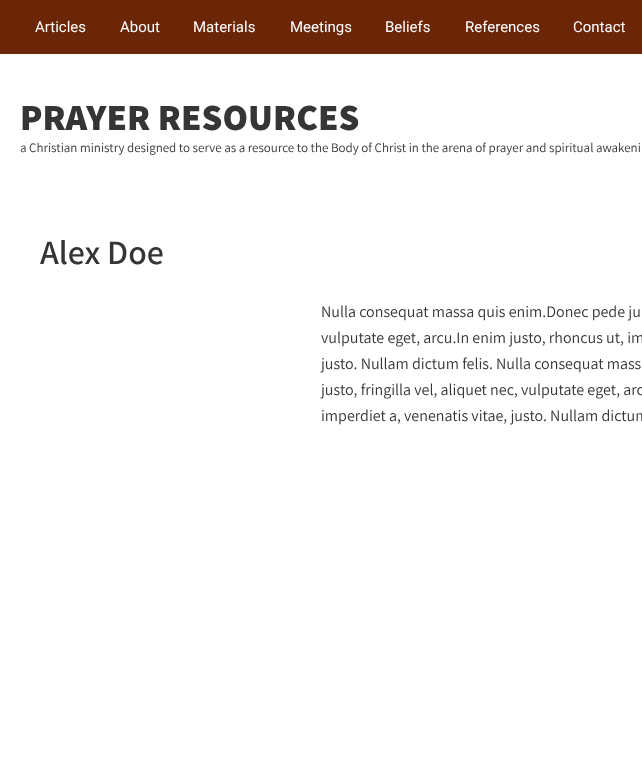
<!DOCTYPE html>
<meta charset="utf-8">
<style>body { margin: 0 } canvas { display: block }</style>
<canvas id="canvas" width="642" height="777"></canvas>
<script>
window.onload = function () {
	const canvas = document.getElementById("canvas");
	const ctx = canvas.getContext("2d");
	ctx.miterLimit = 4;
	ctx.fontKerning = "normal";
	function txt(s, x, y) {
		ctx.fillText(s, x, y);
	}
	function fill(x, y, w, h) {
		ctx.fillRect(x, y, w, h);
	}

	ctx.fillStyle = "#FFFFFF";
	fill(0, 0, 642, 777);
	ctx.fillStyle = "#6B2608";
	fill(0, 0, 642, 54);
	ctx.font = "15px Roboto";
	ctx.fillStyle = "#FFFFFF";
	txt("Articles", 35, 32);
	txt("About", 120, 32);
	txt("Materials", 193, 32);
	txt("Meetings", 290, 32);
	txt("Beliefs", 385, 32);
	txt("References", 465, 32);
	txt("Contact", 573, 32);
	ctx.font = "800 37px Assistant";
	ctx.fillStyle = "#353535";
	txt("PRAYER RESOURCES", 20, 130);
	ctx.font = "200 13px Assistant";
	txt("a Christian ministry designed to serve as a resource to the Body of Christ in the arena of prayer and spiritual awakeni", 20, 152);
	ctx.font = "600 34px Assistant";
	txt("Alex Doe", 40, 264);
	ctx.font = "200 16px Assistant";
	txt("Nulla consequat massa quis enim.Donec pede ju", 321, 317);
	txt("vulputate eget, arcu.In enim justo, rhoncus ut, im", 321, 343);
	txt("justo. Nullam dictum felis. Nulla consequat mass", 321, 369);
	txt("justo, fringilla vel, aliquet nec, vulputate eget, arc", 321, 395);
	txt("imperdiet a, venenatis vitae, justo. Nullam dictum", 321, 421);
};
</script>
